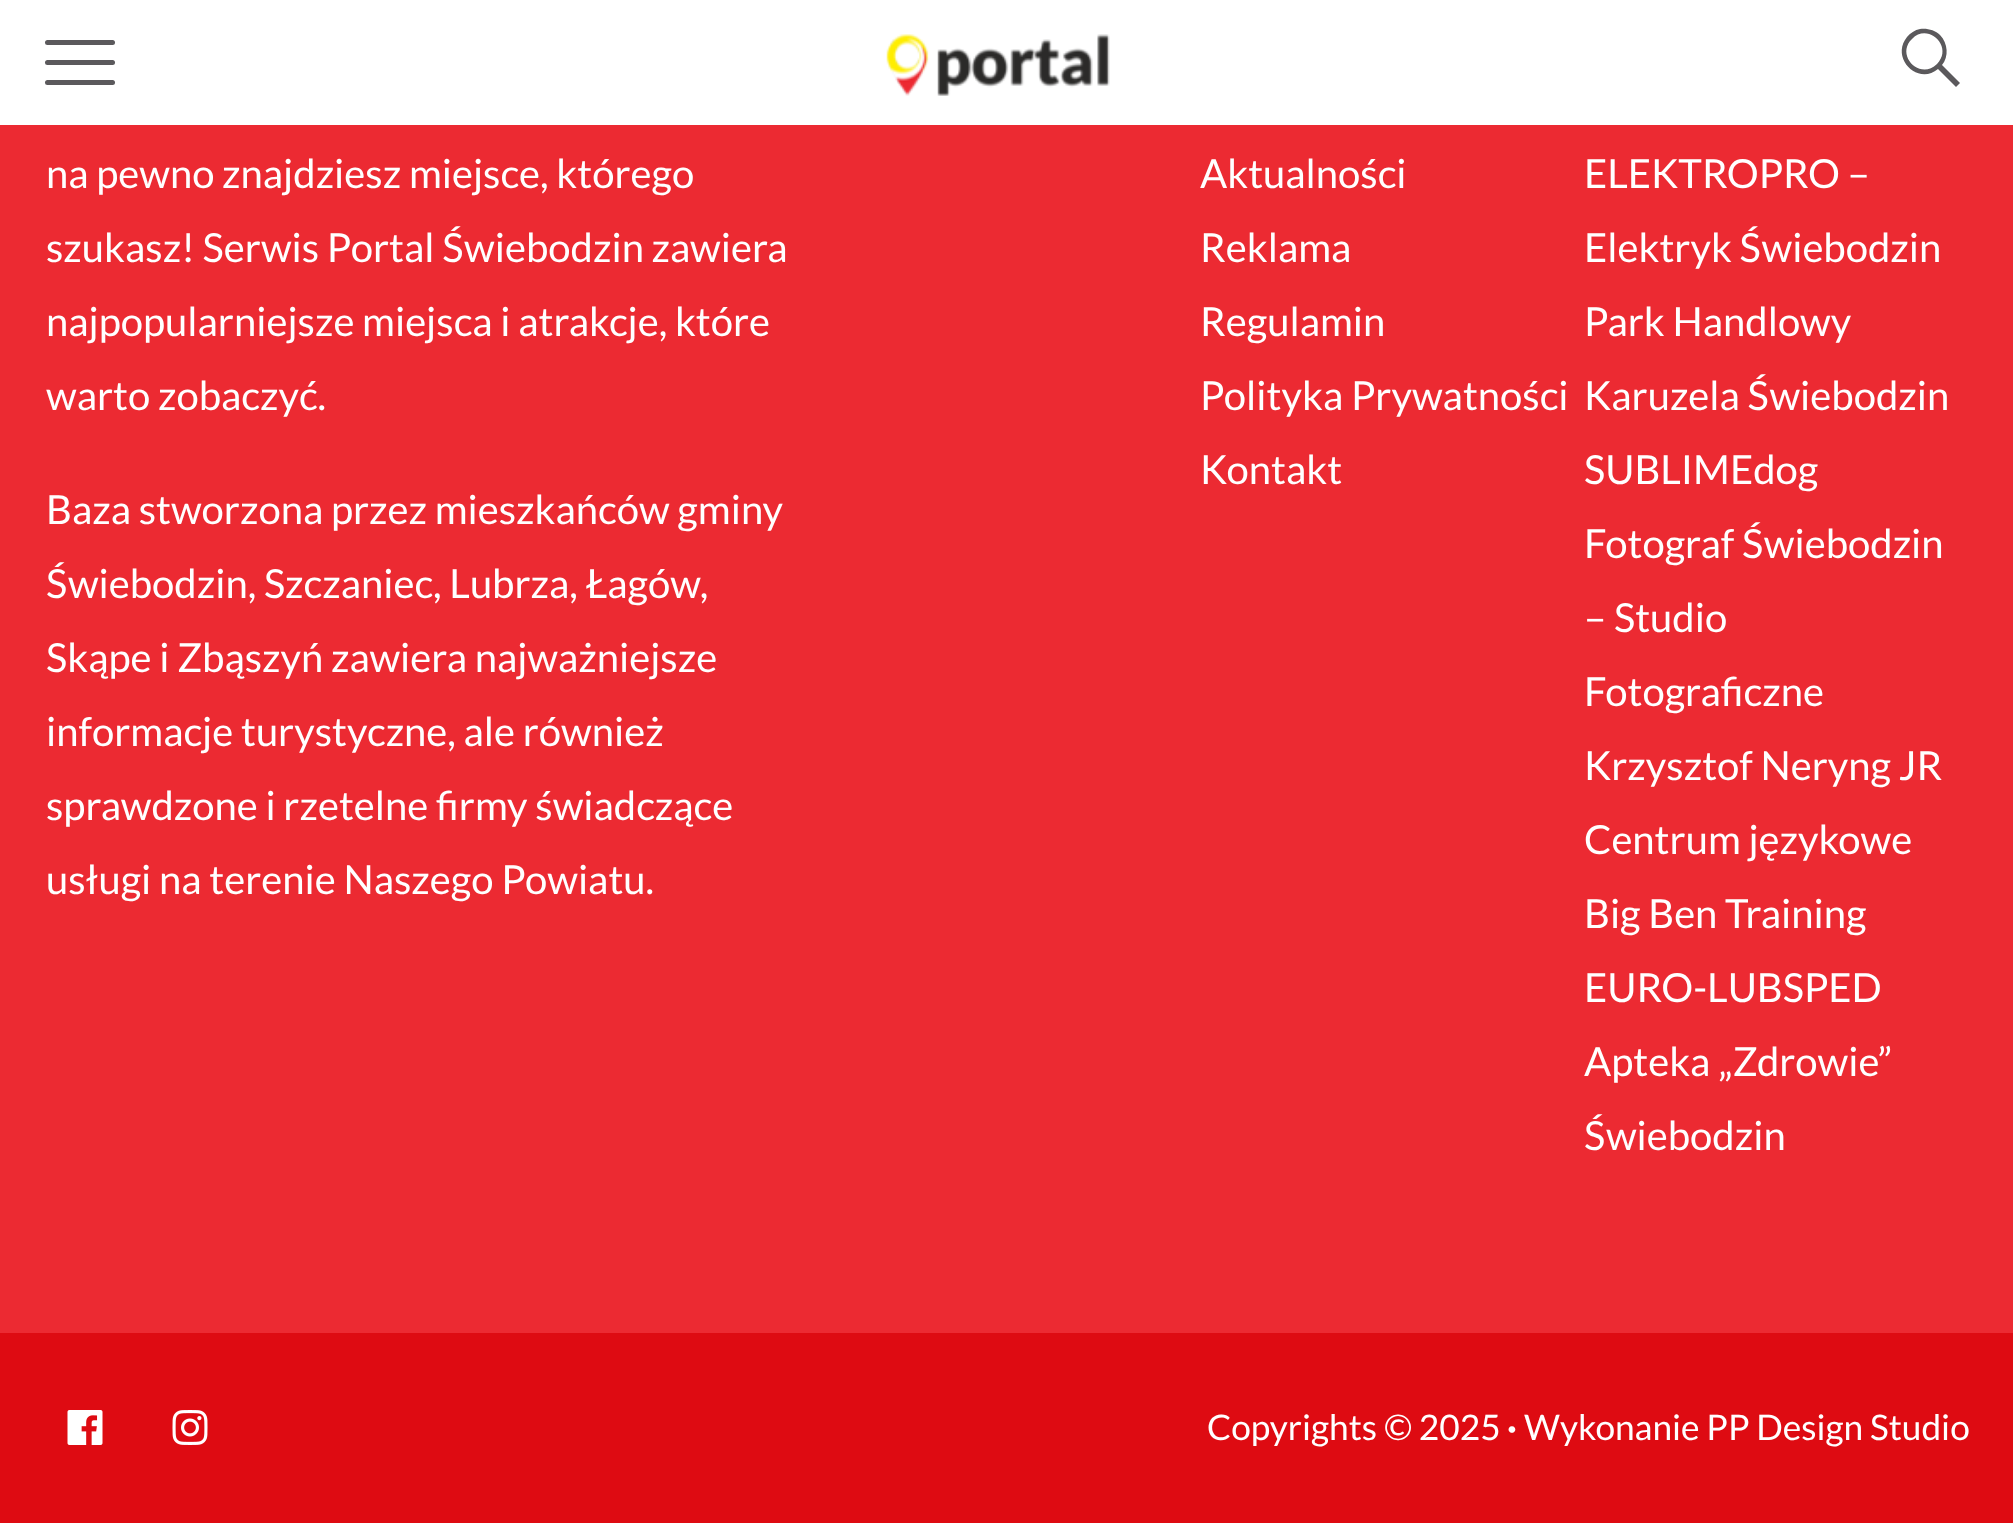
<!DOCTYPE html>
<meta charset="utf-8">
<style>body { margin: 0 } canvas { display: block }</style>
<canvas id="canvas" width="2013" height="1523"></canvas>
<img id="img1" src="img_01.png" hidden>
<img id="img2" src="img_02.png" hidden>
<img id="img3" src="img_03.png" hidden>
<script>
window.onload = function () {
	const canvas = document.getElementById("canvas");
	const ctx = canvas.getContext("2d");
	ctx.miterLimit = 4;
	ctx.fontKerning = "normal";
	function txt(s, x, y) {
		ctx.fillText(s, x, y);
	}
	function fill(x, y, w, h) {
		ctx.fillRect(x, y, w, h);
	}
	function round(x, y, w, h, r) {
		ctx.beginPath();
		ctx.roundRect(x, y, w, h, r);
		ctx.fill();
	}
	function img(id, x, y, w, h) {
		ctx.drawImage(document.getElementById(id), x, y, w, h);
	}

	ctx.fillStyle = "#EC2A32";
	fill(0, 0, 2013, 1523);
	ctx.fillStyle = "#FFFFFF";
	fill(0, 0, 2013, 125);
	ctx.fillStyle = "#5B595C";
	round(45, 40, 70, 5, 2.5);
	round(45, 60, 70, 5, 2.5);
	round(45, 80, 70, 5, 2.5);
	img("img1", 886, 34, 224, 62);
	ctx.beginPath();
	ctx.moveTo(1940, 35);
	ctx.bezierCurveTo(1935, 30, 1927, 28, 1920, 29);
	ctx.bezierCurveTo(1915, 30, 1910, 33, 1907, 37);
	ctx.bezierCurveTo(1890, 58, 1918, 86, 1938, 69);
	ctx.lineTo(1956, 87);
	ctx.lineTo(1960, 83);
	ctx.lineTo(1942, 65);
	ctx.bezierCurveTo(1949, 57, 1948, 43, 1940, 35);
	ctx.closePath();
	ctx.moveTo(1912, 39);
	ctx.bezierCurveTo(1928, 22, 1954, 47, 1937, 64);
	ctx.bezierCurveTo(1920, 81, 1895, 55, 1912, 39);
	ctx.closePath();
	ctx.fill();
	ctx.fillStyle = "#DE0B12";
	fill(0, 1333, 2013, 190);
	img("img2", 67, 1410, 36, 35);
	img("img3", 172, 1410, 36, 35);
	ctx.font = "40px Lato";
	ctx.fillStyle = "#FFFFFF";
	txt("na pewno znajdziesz miejsce, którego", 46, 188);
	txt("szukasz! Serwis Portal Świebodzin zawiera", 46, 262);
	txt("najpopularniejsze miejsca i atrakcje, które", 46, 336);
	txt("warto zobaczyć.", 46, 410);
	txt("Baza stworzona przez mieszkańców gminy", 46, 524);
	txt("Świebodzin, Szczaniec, Lubrza, Łagów,", 46, 598);
	txt("Skąpe i Zbąszyń zawiera najważniejsze", 46, 672);
	txt("informacje turystyczne, ale również", 46, 746);
	txt("sprawdzone i rzetelne firmy świadczące", 46, 820);
	txt("usługi na terenie Naszego Powiatu.", 46, 894);
	txt("Aktualności", 1200, 188);
	txt("Reklama", 1200, 262);
	txt("Regulamin", 1200, 336);
	txt("Polityka Prywatności", 1200, 410);
	txt("Kontakt", 1200, 484);
	txt("ELEKTROPRO –", 1584, 188);
	txt("Elektryk Świebodzin", 1584, 262);
	txt("Park Handlowy", 1584, 336);
	txt("Karuzela Świebodzin", 1584, 410);
	txt("SUBLIMEdog", 1584, 484);
	txt("Fotograf Świebodzin", 1584, 558);
	txt("– Studio", 1584, 632);
	txt("Fotograficzne", 1584, 706);
	txt("Krzysztof Neryng JR", 1584, 780);
	txt("Centrum językowe", 1584, 854);
	txt("Big Ben Training", 1584, 928);
	txt("EURO-LUBSPED", 1584, 1002);
	txt("Apteka „Zdrowie”", 1584, 1076);
	txt("Świebodzin", 1584, 1150);
	ctx.font = "35.25px Lato";
	txt("Copyrights © 2025", 1207, 1440);
	ctx.font = "bold 35.25px Lato";
	txt("·", 1507, 1440);
	ctx.font = "35.25px Lato";
	txt("Wykonanie PP Design Studio", 1524, 1440);
};
</script>
